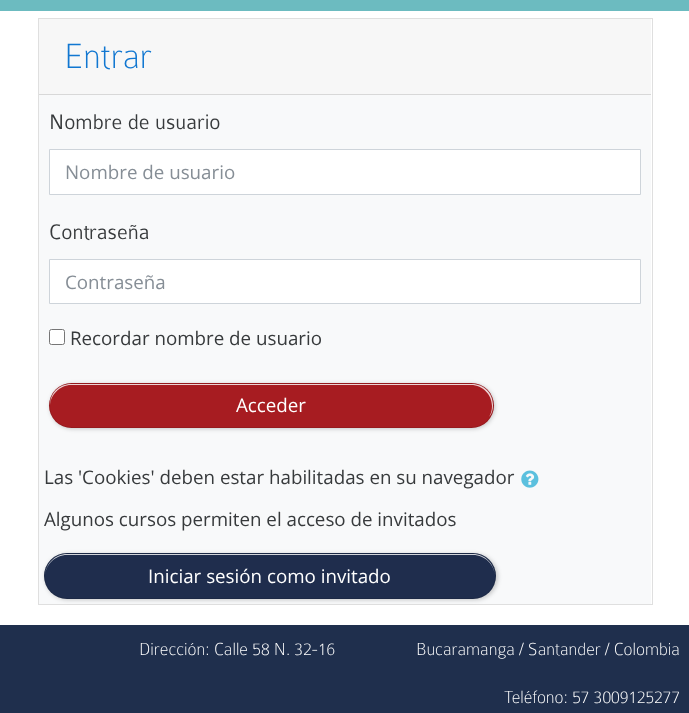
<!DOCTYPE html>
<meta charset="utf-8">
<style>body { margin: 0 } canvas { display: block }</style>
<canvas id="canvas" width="689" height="713"></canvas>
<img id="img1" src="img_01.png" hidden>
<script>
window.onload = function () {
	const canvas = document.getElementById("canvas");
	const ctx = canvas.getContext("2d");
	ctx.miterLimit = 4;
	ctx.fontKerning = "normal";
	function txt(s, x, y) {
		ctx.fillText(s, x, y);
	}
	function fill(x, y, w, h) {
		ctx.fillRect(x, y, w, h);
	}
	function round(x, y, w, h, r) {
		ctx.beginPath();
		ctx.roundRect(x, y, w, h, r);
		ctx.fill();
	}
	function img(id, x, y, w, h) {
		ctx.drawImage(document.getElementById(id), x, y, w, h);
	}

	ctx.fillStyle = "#FFFFFF";
	fill(0, 0, 689, 713);
	ctx.fillStyle = "#6CBBC0";
	fill(0, 0, 689, 11);
	ctx.strokeStyle = "#DFDFDF";
	ctx.strokeRect(38.5, 18.5, 614, 586);
	ctx.fillStyle = "#F7F7F7";
	fill(39, 19, 612, 75);
	ctx.fillStyle = "#D8D8D8";
	fill(39, 94, 612, 1);
	ctx.fillStyle = "#F8F9FA";
	fill(39, 95, 612, 509);
	ctx.fillStyle = "#FFFFFF";
	ctx.beginPath();
	ctx.rect(49.5, 149.5, 591, 45);
	ctx.fill();
	ctx.strokeStyle = "#CED4DA";
	ctx.stroke();
	ctx.beginPath();
	ctx.rect(49.5, 259.5, 591, 44);
	ctx.fill();
	ctx.stroke();
	ctx.beginPath();
	ctx.roundRect(49.5, 329.5, 15, 15, 2);
	ctx.fill();
	ctx.strokeStyle = "#767676";
	ctx.stroke();
	ctx.fillStyle = "rgba(0, 0, 0, 0.2)";
	ctx.filter = "blur(2px)";
	ctx.beginPath();
	ctx.roundRect(50, 384, 445, 45, 22.5);
	ctx.fill();
	ctx.filter = "none";
	ctx.fillStyle = "#A71C21";
	round(49, 383, 445, 45, 22.5);
	ctx.fillStyle = "#EDD2D3";
	ctx.beginPath();
	ctx.moveTo(71, 385);
	ctx.lineTo(471, 385);
	ctx.bezierCurveTo(483, 385, 492, 395, 492, 406);
	ctx.bezierCurveTo(492, 410, 491, 414, 489, 417);
	ctx.bezierCurveTo(492, 414, 493, 409, 493, 405);
	ctx.bezierCurveTo(493, 393, 484, 384, 472, 384);
	ctx.lineTo(71, 384);
	ctx.bezierCurveTo(59, 384, 50, 393, 50, 405);
	ctx.lineTo(50, 406);
	ctx.bezierCurveTo(50, 395, 60, 385, 71, 385);
	ctx.closePath();
	ctx.fill();
	ctx.beginPath();
	ctx.roundRect(49.5, 383.5, 444, 44, 22);
	ctx.strokeStyle = "rgba(0, 0, 0, 0.1)";
	ctx.stroke();
	img("img1", 521, 470, 18, 18);
	ctx.fillStyle = "rgba(0, 0, 0, 0.2)";
	ctx.filter = "blur(2px)";
	ctx.beginPath();
	ctx.roundRect(45, 554, 453, 46, 23);
	ctx.fill();
	ctx.filter = "none";
	ctx.fillStyle = "#1F2D4D";
	round(44, 553, 452, 46, 23);
	ctx.fillStyle = "#D2D5DB";
	ctx.beginPath();
	ctx.moveTo(67, 555);
	ctx.lineTo(473, 555);
	ctx.bezierCurveTo(485, 555, 495, 565, 495, 577);
	ctx.bezierCurveTo(495, 564, 485, 554, 473, 554);
	ctx.lineTo(67, 554);
	ctx.bezierCurveTo(55, 554, 45, 564, 45, 577);
	ctx.bezierCurveTo(45, 565, 55, 555, 67, 555);
	ctx.closePath();
	ctx.fill();
	ctx.beginPath();
	ctx.roundRect(44.5, 553.5, 451, 45, 22.5);
	ctx.stroke();
	ctx.fillStyle = "#1F2F4D";
	fill(0, 625, 689, 88);
	ctx.font = "100 37.5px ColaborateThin";
	ctx.fillStyle = "#1177D1";
	txt("Entrar", 64, 68);
	ctx.font = "300 22.5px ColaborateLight";
	ctx.fillStyle = "#373A3C";
	txt("Nombre de usuario", 49, 129);
	ctx.font = "18.75px Open Sans";
	ctx.fillStyle = "#868E96";
	txt("Nombre de usuario", 65, 179);
	ctx.font = "300 22.5px ColaborateLight";
	ctx.fillStyle = "#373A3C";
	txt("Contraseña", 49, 239);
	ctx.font = "18.75px Open Sans";
	ctx.fillStyle = "#868E96";
	txt("Contraseña", 65, 289);
	ctx.fillStyle = "#373A3C";
	txt("Recordar nombre de usuario", 70, 345);
	ctx.fillStyle = "#FFFFFF";
	txt("Acceder", 236, 412);
	ctx.fillStyle = "#373A3C";
	txt("Las 'Cookies' deben estar habilitadas en su navegador", 44, 484);
	txt("Algunos cursos permiten el acceso de invitados", 44, 526);
	ctx.fillStyle = "#FFFFFF";
	txt("Iniciar sesión como invitado", 148, 583);
	ctx.font = "100 18.75px ColaborateThin";
	txt("Dirección: Calle 58 N. 32-16", 139, 655);
	txt("Bucaramanga / Santander / Colombia", 416, 655);
	txt("Teléfono: 57 3009125277", 504, 703);
};
</script>
